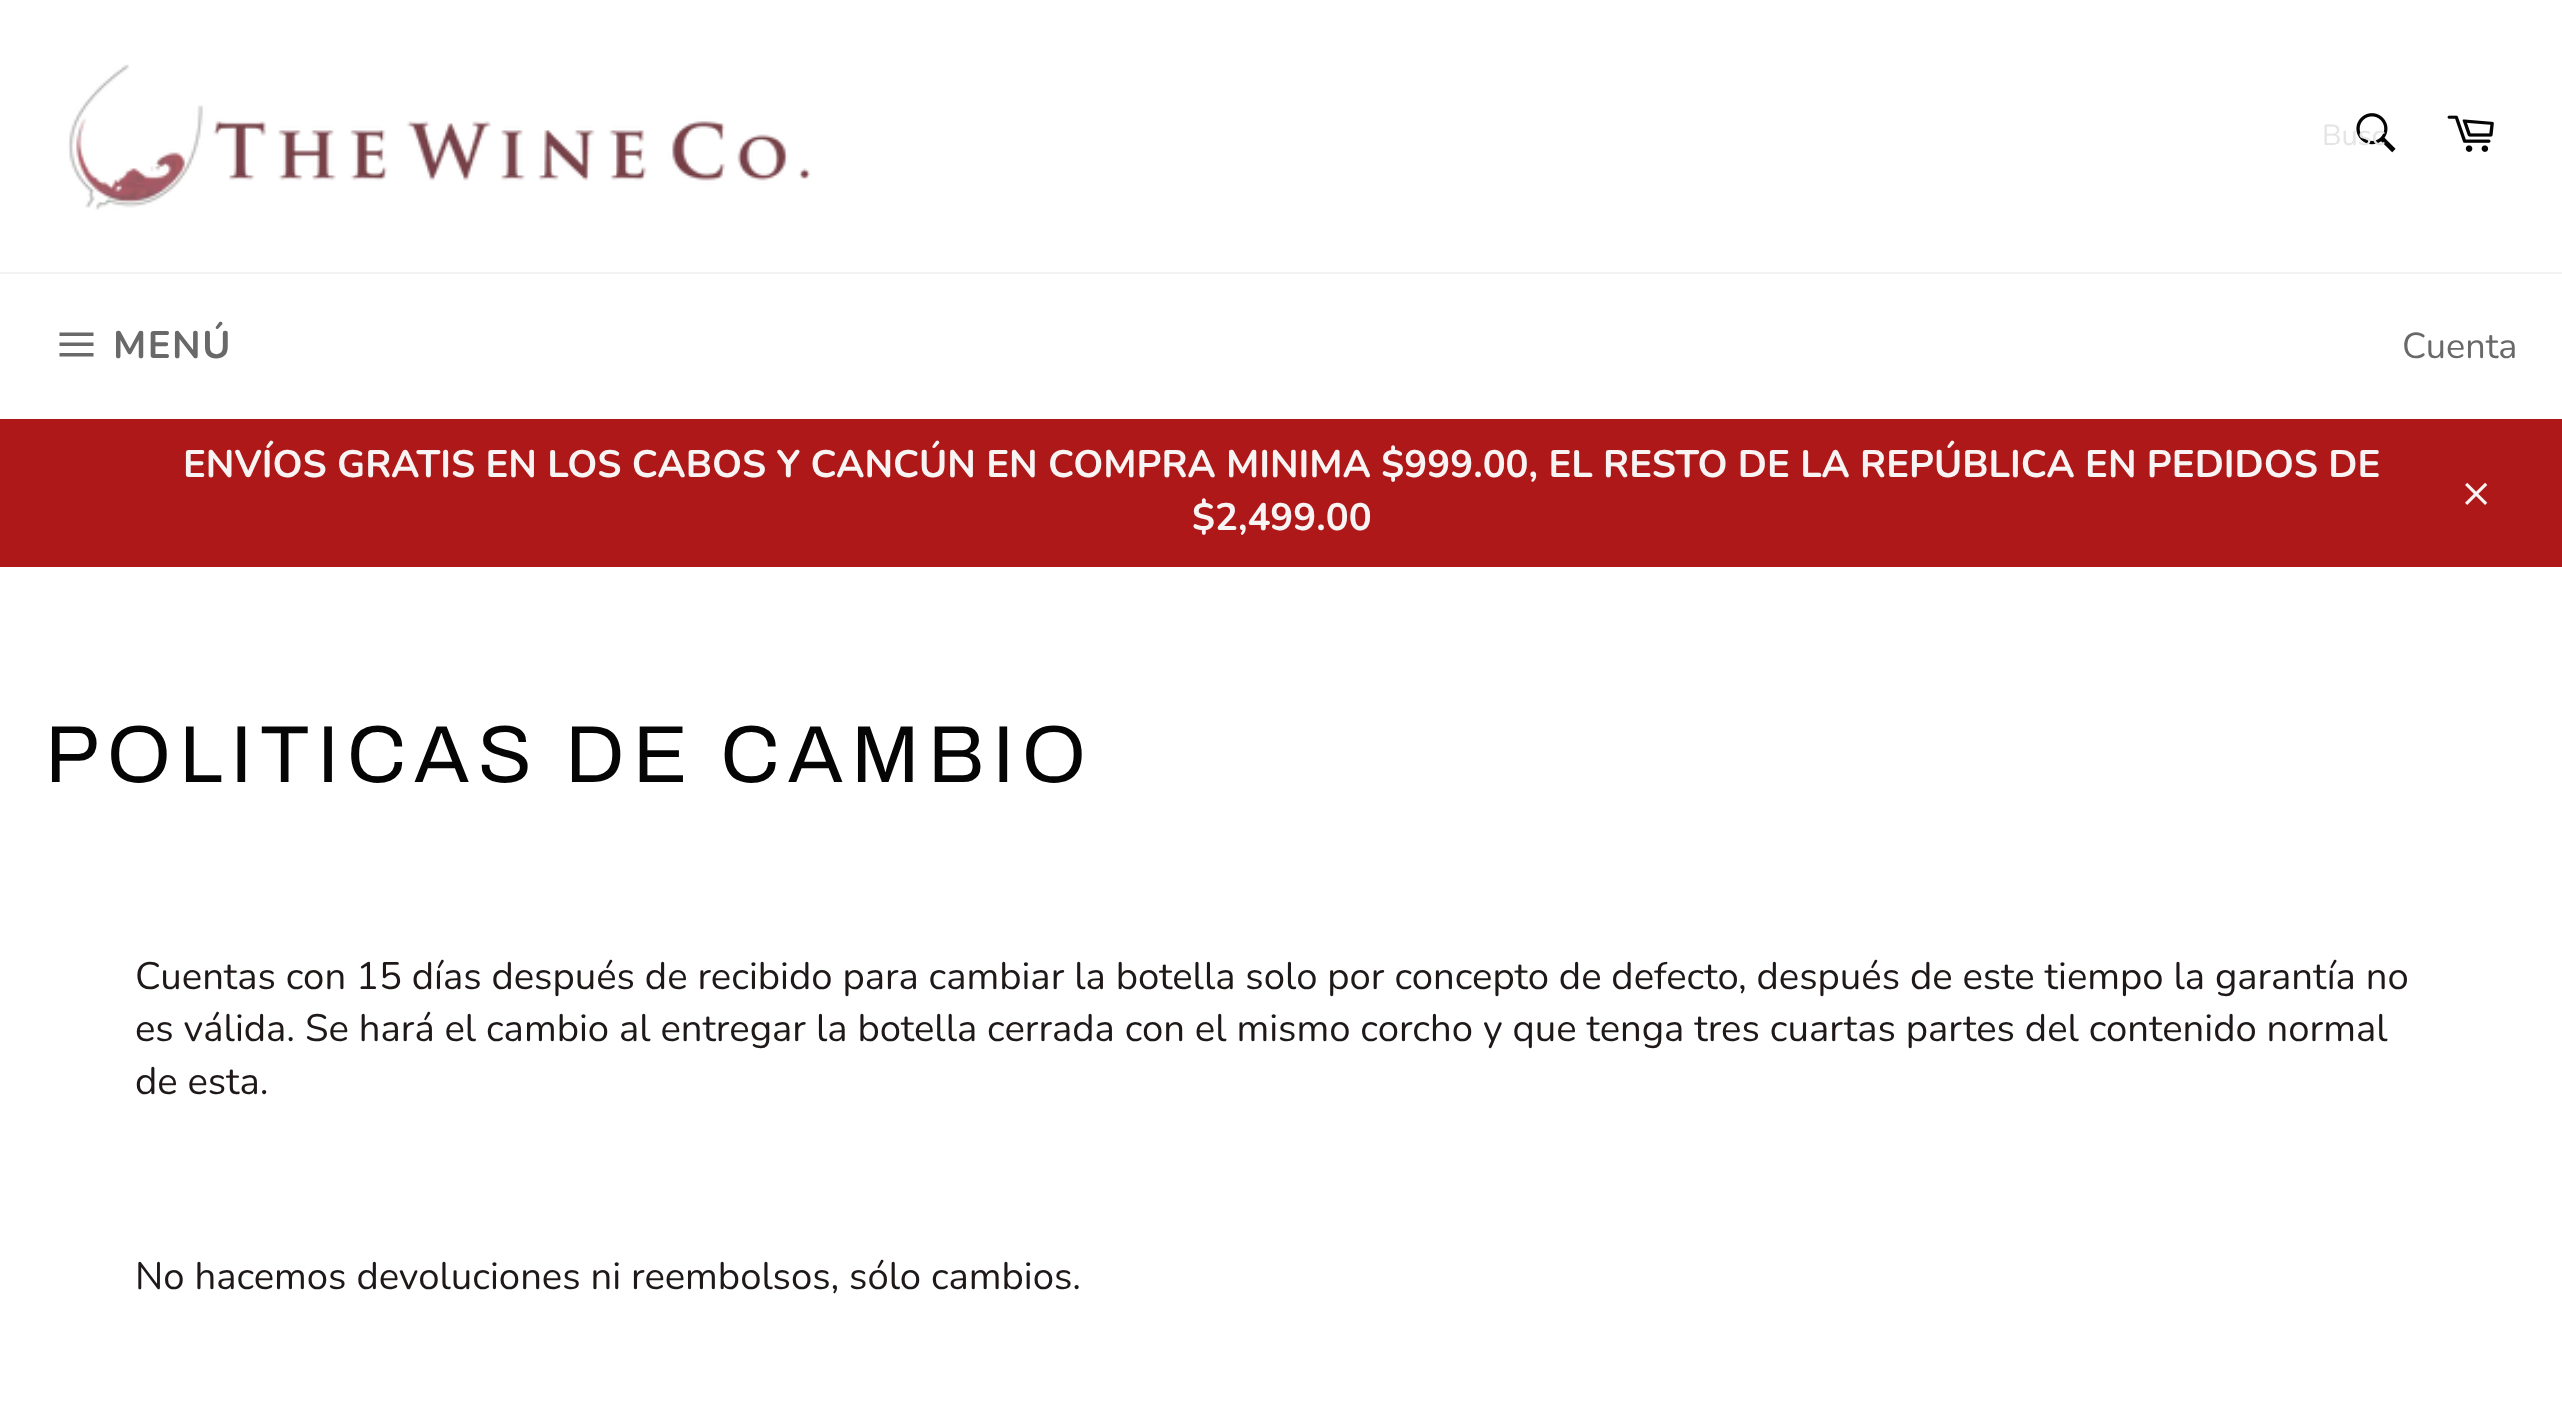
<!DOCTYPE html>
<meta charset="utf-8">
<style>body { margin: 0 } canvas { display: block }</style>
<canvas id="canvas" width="2562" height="1403"></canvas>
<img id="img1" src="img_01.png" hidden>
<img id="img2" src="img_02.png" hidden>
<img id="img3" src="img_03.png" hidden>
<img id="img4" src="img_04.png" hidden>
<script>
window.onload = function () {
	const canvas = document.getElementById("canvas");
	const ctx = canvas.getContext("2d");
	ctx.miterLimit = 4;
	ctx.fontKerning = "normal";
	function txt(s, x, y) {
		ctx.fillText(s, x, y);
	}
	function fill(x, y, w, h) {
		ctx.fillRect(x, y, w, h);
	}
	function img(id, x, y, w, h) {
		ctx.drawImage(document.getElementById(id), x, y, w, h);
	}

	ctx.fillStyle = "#FFFFFF";
	fill(0, 0, 2562, 1403);
	img("img1", 68, 64, 743, 146);
	img("img2", 2356, 113, 40, 40);
	img("img3", 2447, 115, 47, 37);
	ctx.fillStyle = "#F2F2F2";
	fill(0, 272, 2562, 2);
	ctx.fillStyle = "#696969";
	ctx.beginPath();
	ctx.moveTo(59.5, 342.5);
	ctx.lineTo(93.5, 342.5);
	ctx.lineTo(93.5, 346);
	ctx.lineTo(59.5, 346);
	ctx.closePath();
	ctx.moveTo(59.5, 332.5);
	ctx.lineTo(93.5, 332.5);
	ctx.lineTo(93.5, 336);
	ctx.lineTo(59.5, 336);
	ctx.closePath();
	ctx.moveTo(59.5, 353);
	ctx.lineTo(93.5, 353);
	ctx.lineTo(93.5, 356.5);
	ctx.lineTo(59.5, 356.5);
	ctx.closePath();
	ctx.fill();
	ctx.fillStyle = "#AE1818";
	fill(0, 419, 2562, 148);
	img("img4", 2465, 482, 23, 23);
	ctx.font = "29px Nunito";
	ctx.fillStyle = "#E5E5E5";
	txt("Busc", 2322, 145);
	ctx.letterSpacing = "1.5px";
	ctx.font = "bold 38.25px Nunito";
	ctx.fillStyle = "#696969";
	txt("MENÚ", 113, 358);
	ctx.letterSpacing = "0px";
	ctx.font = "36px Nunito";
	txt("Cuenta", 2402, 358);
	ctx.font = "bold 38.25px Nunito";
	ctx.fillStyle = "#F8F4F4";
	txt("ENVÍOS GRATIS EN LOS CABOS Y CANCÚN EN COMPRA MINIMA $999.00, EL RESTO DE LA REPÚBLICA EN PEDIDOS DE", 183, 477);
	txt("$2,499.00", 1192, 530);
	ctx.letterSpacing = "8.1px";
	ctx.font = "81px Archivo";
	ctx.fillStyle = "#050505";
	txt("POLITICAS DE CAMBIO", 45, 782);
	ctx.letterSpacing = "0px";
	ctx.font = "38.25px Nunito";
	ctx.fillStyle = "#1F1818";
	txt("Cuentas con 15 días después de recibido para cambiar la botella solo por concepto de defecto, después de este tiempo la garantía no", 135, 989);
	txt("es válida. Se hará el cambio al entregar la botella cerrada con el mismo corcho y que tenga tres cuartas partes del contenido normal", 135, 1041);
	txt("de esta.", 135, 1094);
	txt("No hacemos devoluciones ni reembolsos, sólo cambios.", 135, 1289);
};
</script>
